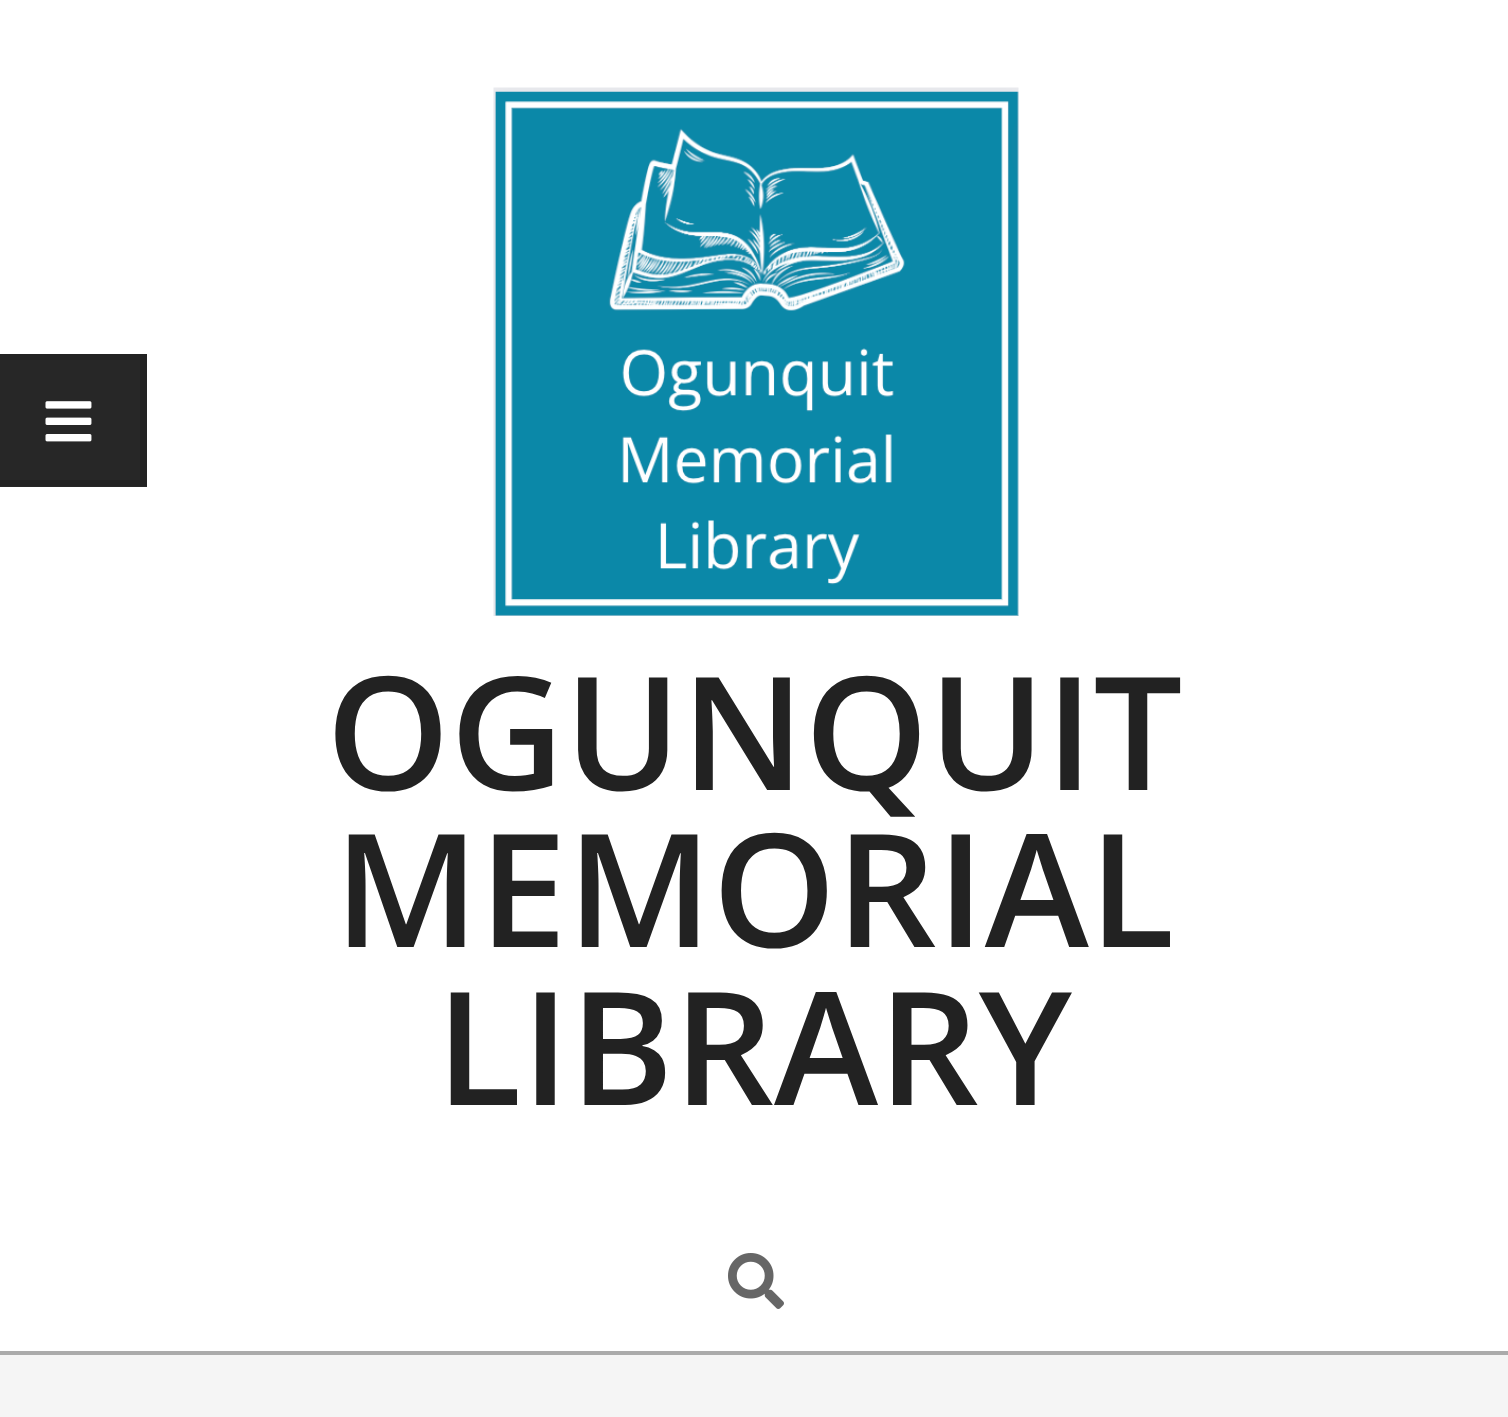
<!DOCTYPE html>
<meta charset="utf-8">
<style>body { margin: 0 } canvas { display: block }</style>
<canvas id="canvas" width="1508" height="1417"></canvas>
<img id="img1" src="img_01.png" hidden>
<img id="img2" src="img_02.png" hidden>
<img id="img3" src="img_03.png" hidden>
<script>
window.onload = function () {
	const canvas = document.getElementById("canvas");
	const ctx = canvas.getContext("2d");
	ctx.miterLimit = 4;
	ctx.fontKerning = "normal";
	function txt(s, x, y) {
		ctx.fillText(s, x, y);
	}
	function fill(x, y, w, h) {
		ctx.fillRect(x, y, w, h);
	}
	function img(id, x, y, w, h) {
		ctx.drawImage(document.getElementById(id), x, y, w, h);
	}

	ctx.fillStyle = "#FFFFFF";
	fill(0, 0, 1508, 1417);
	ctx.fillStyle = "#ABABAB";
	fill(0, 1351, 1508, 4);
	ctx.fillStyle = "#272727";
	fill(0, 354, 147, 133);
	ctx.fillStyle = "#222222";
	ctx.beginPath();
	ctx.moveTo(0, 354);
	ctx.lineTo(147, 354);
	ctx.lineTo(140, 360);
	ctx.lineTo(0, 360);
	ctx.closePath();
	ctx.fill();
	ctx.beginPath();
	ctx.moveTo(147, 354);
	ctx.lineTo(147, 486);
	ctx.lineTo(140, 480);
	ctx.lineTo(140, 360);
	ctx.closePath();
	ctx.fill();
	ctx.beginPath();
	ctx.moveTo(147, 486);
	ctx.lineTo(0, 486);
	ctx.lineTo(0, 480);
	ctx.lineTo(140, 480);
	ctx.closePath();
	ctx.fill();
	img("img1", 45, 401, 47, 41);
	img("img2", 493, 87, 526, 529);
	img("img3", 728, 1253, 56, 56);
	ctx.fillStyle = "#F5F5F5";
	fill(0, 1355, 1508, 62);
	ctx.font = "600 157.5px Open Sans";
	ctx.fillStyle = "#222222";
	txt("OGUNQUIT", 326, 790);
	txt("MEMORIAL", 334, 947);
	txt("LIBRARY", 436, 1105);
};
</script>
